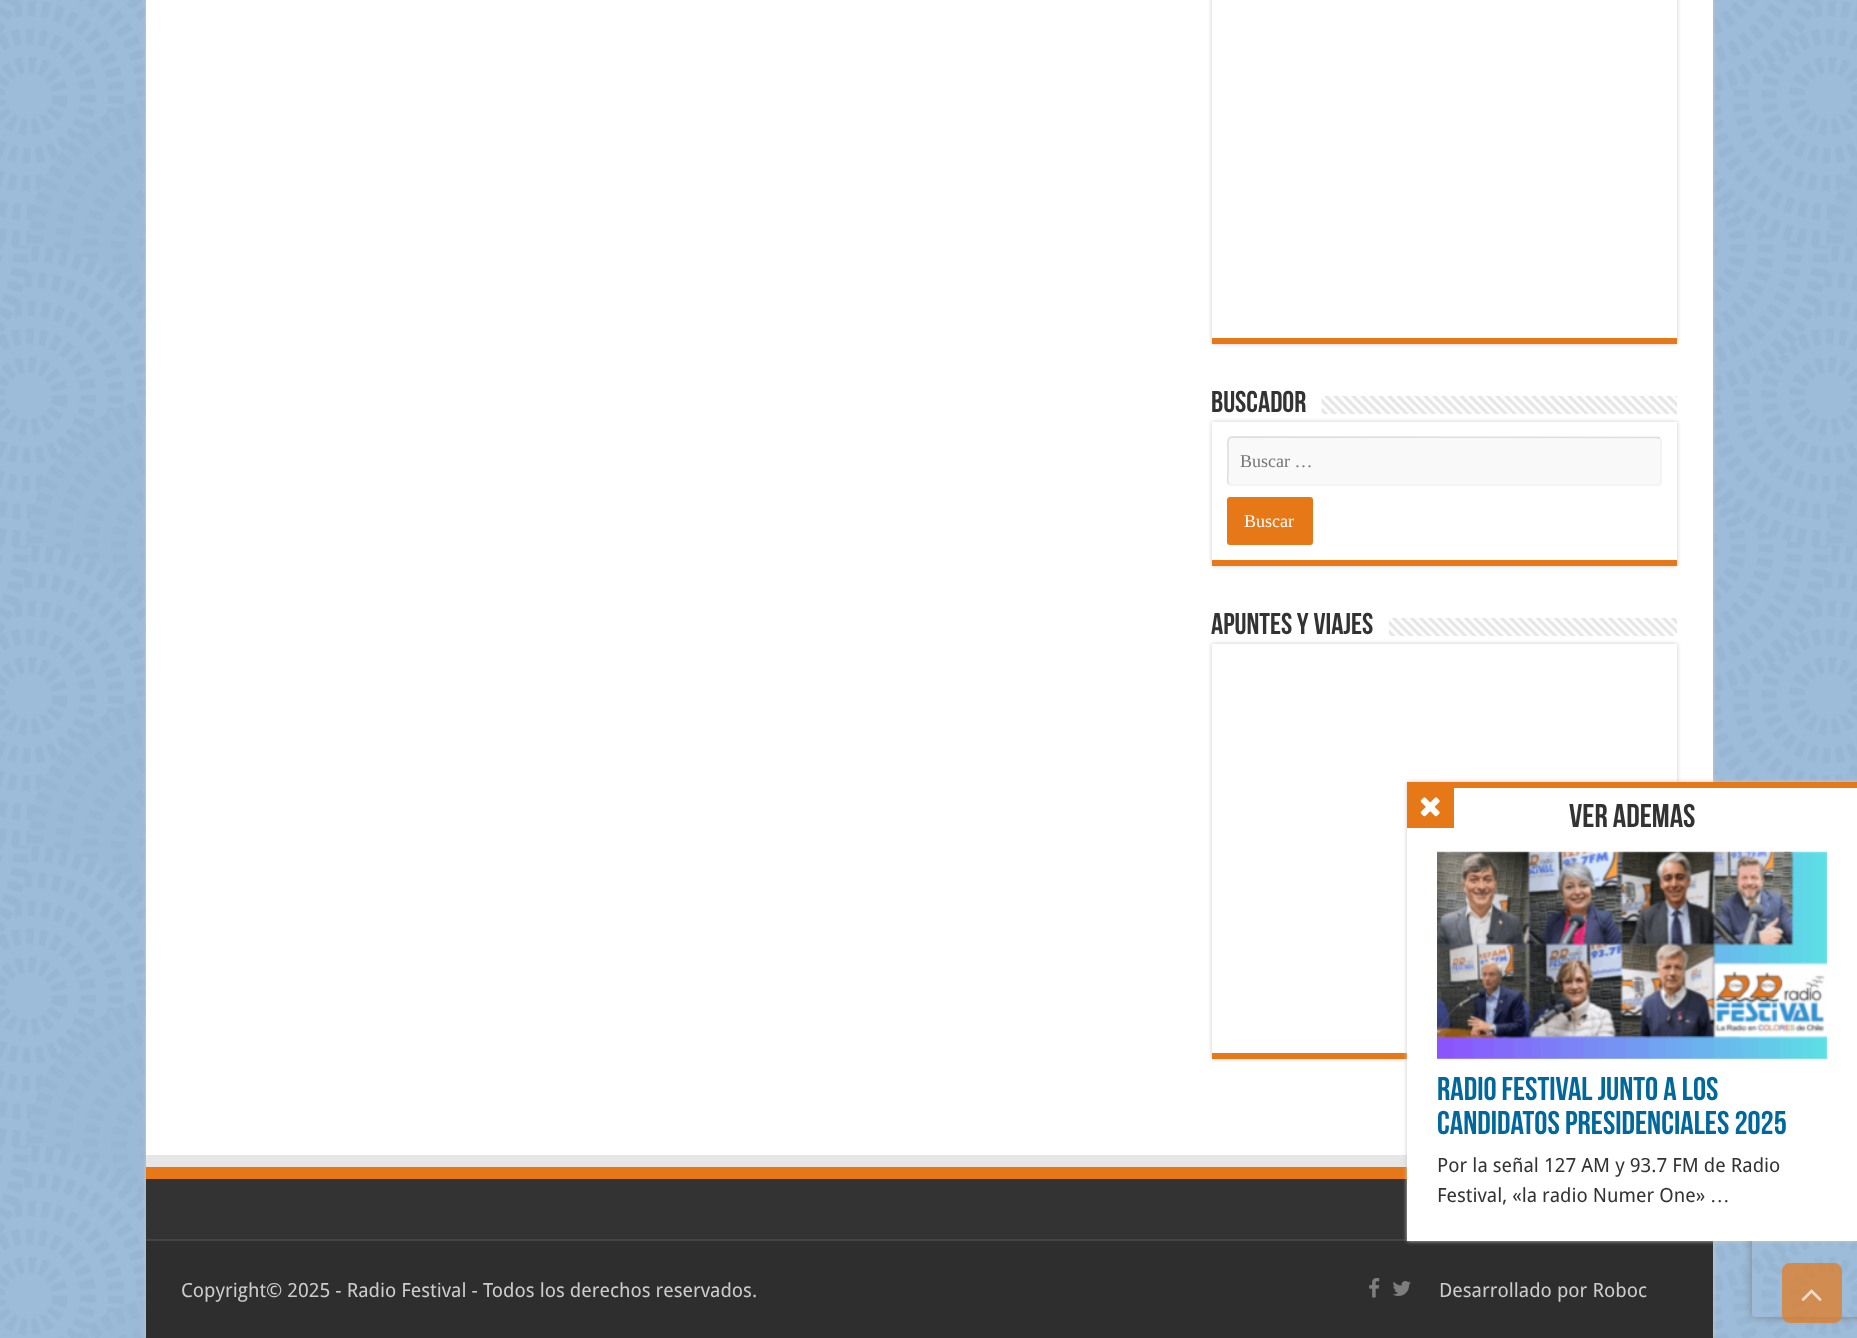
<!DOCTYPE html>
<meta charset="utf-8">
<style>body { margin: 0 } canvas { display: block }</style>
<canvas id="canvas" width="1857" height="1338"></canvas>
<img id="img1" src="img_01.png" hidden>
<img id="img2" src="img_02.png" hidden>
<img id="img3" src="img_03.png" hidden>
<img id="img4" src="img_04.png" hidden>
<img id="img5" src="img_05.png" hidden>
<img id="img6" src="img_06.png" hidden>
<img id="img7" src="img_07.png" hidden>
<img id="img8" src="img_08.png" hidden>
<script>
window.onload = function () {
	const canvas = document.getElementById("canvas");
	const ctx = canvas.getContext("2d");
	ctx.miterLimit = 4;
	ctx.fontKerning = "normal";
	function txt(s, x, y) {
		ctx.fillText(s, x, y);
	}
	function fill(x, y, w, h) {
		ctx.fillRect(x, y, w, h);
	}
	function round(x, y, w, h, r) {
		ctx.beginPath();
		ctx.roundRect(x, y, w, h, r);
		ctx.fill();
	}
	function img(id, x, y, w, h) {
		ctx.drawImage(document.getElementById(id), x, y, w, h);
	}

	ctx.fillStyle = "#5188BE";
	fill(0, 0, 1857, 1338);
	img("img1", 0, 0, 1857, 1338);
	ctx.fillStyle = "#CACACA";
	ctx.filter = "blur(2px)";
	ctx.beginPath();
	ctx.rect(146, -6, 1567, 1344);
	ctx.fill();
	ctx.filter = "none";
	ctx.fillStyle = "#FFFFFF";
	fill(146, 0, 1567, 1155);
	ctx.fillStyle = "#E6E6E6";
	fill(146, 1155, 1261, 12);
	ctx.fillStyle = "#333333";
	fill(146, 1179, 1261, 60);
	ctx.fillStyle = "#E77818";
	fill(146, 1167, 1261, 12);
	ctx.fillStyle = "#CACACA";
	ctx.filter = "blur(2px)";
	ctx.beginPath();
	ctx.rect(1212, -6, 465, 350);
	ctx.fill();
	ctx.filter = "none";
	ctx.fillStyle = "#FFFFFF";
	fill(1212, 0, 465, 338);
	ctx.fillStyle = "#E77818";
	fill(1212, 338, 465, 6);
	img("img2", 1321, 396, 356, 18);
	ctx.fillStyle = "#CACACA";
	ctx.filter = "blur(2px)";
	ctx.beginPath();
	ctx.rect(1212, 422, 465, 144);
	ctx.fill();
	ctx.filter = "none";
	ctx.fillStyle = "#FFFFFF";
	fill(1212, 422, 465, 138);
	ctx.fillStyle = "#E77818";
	fill(1212, 560, 465, 6);
	ctx.fillStyle = "#F9F9F9";
	round(1227, 437, 435, 49, 5);
	ctx.beginPath();
	ctx.moveTo(1660, 438.5);
	ctx.bezierCurveTo(1662.5, 440.5, 1661, 446, 1661, 448);
	ctx.lineTo(1661, 475);
	ctx.bezierCurveTo(1661, 477.5, 1662.5, 485, 1657.5, 485);
	ctx.lineTo(1231, 485);
	ctx.lineTo(1229, 484);
	ctx.strokeStyle = "#F1F1F1";
	ctx.lineWidth = 1.5;
	ctx.stroke();
	ctx.beginPath();
	ctx.moveTo(1229, 484);
	ctx.bezierCurveTo(1226.5, 482, 1228, 476.5, 1228, 475);
	ctx.lineTo(1228, 448);
	ctx.bezierCurveTo(1228, 445, 1226.5, 437.5, 1231.5, 437);
	ctx.lineTo(1658, 437.5);
	ctx.lineTo(1660, 438.5);
	ctx.strokeStyle = "#DDDDDD";
	ctx.stroke();
	ctx.fillStyle = "#E77818";
	round(1227, 497, 86, 48, 3);
	img("img3", 1389, 618, 288, 18);
	ctx.save();
	ctx.beginPath();
	ctx.moveTo(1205, 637);
	ctx.lineTo(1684, 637);
	ctx.lineTo(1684, 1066);
	ctx.lineTo(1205, 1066);
	ctx.closePath();
	ctx.moveTo(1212, 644);
	ctx.lineTo(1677, 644);
	ctx.lineTo(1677, 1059);
	ctx.lineTo(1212, 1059);
	ctx.closePath();
	ctx.clip("evenodd");
	ctx.fillStyle = "#CACACA";
	ctx.filter = "blur(2px)";
	ctx.beginPath();
	ctx.rect(1212, 644, 465, 415);
	ctx.fill();
	ctx.filter = "none";
	ctx.restore();
	fill(1212, 1053, 195, 6);
	ctx.fillStyle = "#2E2E2E";
	fill(146, 1241, 1567, 97);
	ctx.fillStyle = "#444444";
	fill(146, 1239, 1261, 2);
	ctx.fillStyle = "#CACACA";
	ctx.filter = "blur(2px)";
	ctx.beginPath();
	ctx.rect(1407, 782, 450, 459);
	ctx.fill();
	ctx.filter = "none";
	ctx.save();
	ctx.beginPath();
	ctx.moveTo(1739, 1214);
	ctx.lineTo(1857, 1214);
	ctx.lineTo(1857, 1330);
	ctx.lineTo(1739, 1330);
	ctx.closePath();
	ctx.moveTo(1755, 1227);
	ctx.lineTo(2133, 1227);
	ctx.bezierCurveTo(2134.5, 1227, 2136, 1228.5, 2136, 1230);
	ctx.lineTo(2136, 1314);
	ctx.bezierCurveTo(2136, 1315.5, 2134.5, 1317, 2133, 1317);
	ctx.lineTo(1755, 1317);
	ctx.bezierCurveTo(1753.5, 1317, 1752, 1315.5, 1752, 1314);
	ctx.lineTo(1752, 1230);
	ctx.bezierCurveTo(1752, 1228.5, 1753.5, 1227, 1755, 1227);
	ctx.closePath();
	ctx.clip("evenodd");
	ctx.fillStyle = "#808080";
	ctx.filter = "blur(4px)";
	ctx.beginPath();
	ctx.roundRect(1752, 1227, 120, 90, 3);
	ctx.fill();
	ctx.filter = "none";
	ctx.restore();
	ctx.fillStyle = "#FFFFFF";
	fill(1407, 788, 450, 453);
	ctx.fillStyle = "#E77818";
	fill(1407, 782, 450, 6);
	fill(1407, 788, 47, 40);
	img("img4", 1420, 797, 20, 20);
	img("img5", 1437, 851, 390, 208);
	img("img6", 1369, 1278, 11, 20);
	img("img7", 1393, 1281, 18, 15);
	ctx.fillStyle = "rgba(231, 120, 24, 0.7)";
	round(1782, 1263, 60, 60, 8);
	img("img8", 1801, 1289, 21, 12);
	ctx.font = "bold 30px Bebas Neue";
	ctx.fillStyle = "#333333";
	txt("Buscador", 1211, 412);
	ctx.font = "18px Liberation Serif";
	ctx.fillStyle = "#757575";
	txt("Buscar …", 1240, 467);
	ctx.fillStyle = "#FFFFFF";
	txt("Buscar", 1244, 527);
	ctx.font = "bold 30px Bebas Neue";
	ctx.fillStyle = "#333333";
	txt("Apuntes y Viajes", 1211, 634);
	ctx.save();
	ctx.beginPath();
	ctx.rect(1437, 803, 390, 49);
	ctx.clip();
	ctx.font = "bold 33px Bebas Neue";
	txt("Ver además", 1569, 827);
	ctx.restore();
	ctx.font = "bold 33px Bebas Neue";
	ctx.fillStyle = "#00689C";
	txt("Radio Festival junto a los", 1437, 1100);
	txt("candidatos Presidenciales 2025", 1437, 1134);
	ctx.font = "19.5px Droid Sans";
	ctx.fillStyle = "#333333";
	txt("Por la señal 127 AM y 93.7 FM de Radio", 1437, 1172);
	txt("Festival, «la radio Numer One»", 1437, 1202);
	ctx.font = "19.5px Liberation Serif";
	txt("…", 1710, 1202);
	ctx.font = "19.5px Droid Sans";
	ctx.fillStyle = "#CCCCCC";
	txt("Copyright© 2025 - Radio Festival - Todos los derechos reservados.", 181, 1297);
	txt("Desarrollado por Roboc", 1439, 1297);
};
</script>
